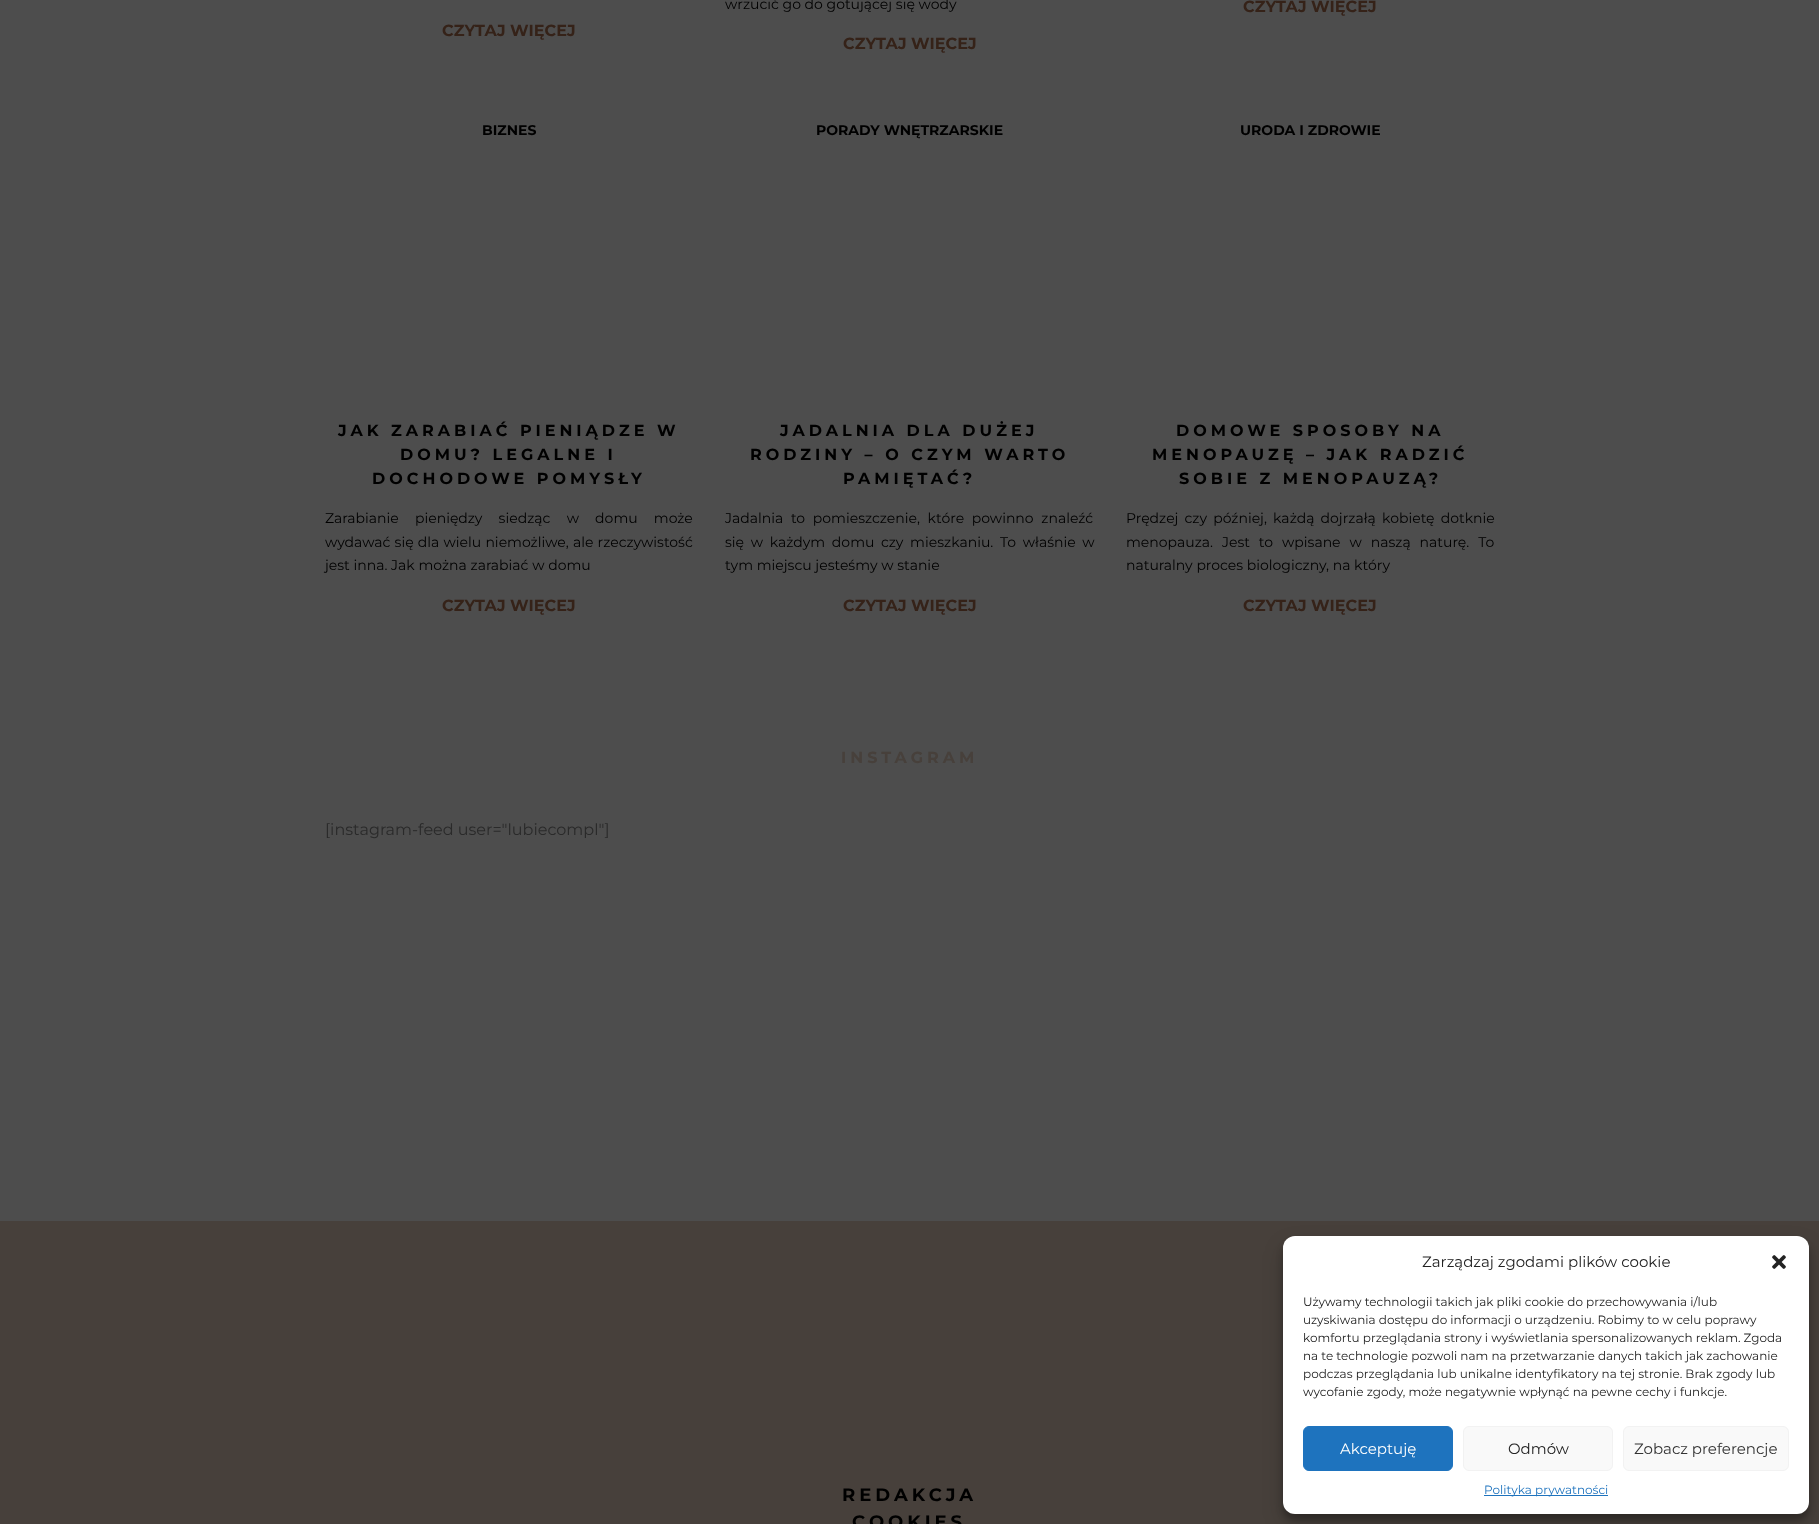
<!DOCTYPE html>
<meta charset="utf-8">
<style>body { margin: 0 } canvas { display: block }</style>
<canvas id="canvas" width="1819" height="1524"></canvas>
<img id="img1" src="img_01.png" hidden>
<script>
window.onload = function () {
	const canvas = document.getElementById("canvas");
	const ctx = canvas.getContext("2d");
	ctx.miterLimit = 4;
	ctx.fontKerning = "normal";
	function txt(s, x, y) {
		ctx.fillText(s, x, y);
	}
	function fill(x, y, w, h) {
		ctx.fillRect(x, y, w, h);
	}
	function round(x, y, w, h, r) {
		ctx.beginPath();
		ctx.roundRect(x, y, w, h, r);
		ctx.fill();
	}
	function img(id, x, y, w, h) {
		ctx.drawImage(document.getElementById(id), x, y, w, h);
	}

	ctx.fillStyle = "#4D4D4D";
	fill(0, 0, 1819, 1524);
	ctx.fillStyle = "#47403B";
	fill(0, 1221, 1819, 303);
	ctx.fillStyle = "rgba(0, 0, 0, 0.23)";
	ctx.filter = "blur(3px)";
	ctx.beginPath();
	ctx.roundRect(1283, 1242, 526, 278, 12);
	ctx.fill();
	ctx.filter = "none";
	ctx.fillStyle = "rgba(0, 0, 0, 0.19)";
	ctx.filter = "blur(10px)";
	ctx.beginPath();
	ctx.roundRect(1283, 1246, 526, 278, 12);
	ctx.fill();
	ctx.filter = "none";
	ctx.fillStyle = "#FFFFFF";
	round(1283, 1236, 526, 278, 12);
	img("img1", 1772, 1255, 14, 14);
	ctx.fillStyle = "#1E73BE";
	ctx.beginPath();
	ctx.roundRect(1303.5, 1426.5, 149, 44, 5.5);
	ctx.fill();
	ctx.strokeStyle = "#1E73BE";
	ctx.stroke();
	ctx.fillStyle = "#F9F9F9";
	ctx.beginPath();
	ctx.roundRect(1463.5, 1426.5, 149, 44, 5.5);
	ctx.fill();
	ctx.strokeStyle = "#F2F2F2";
	ctx.stroke();
	ctx.beginPath();
	ctx.roundRect(1623.5, 1426.5, 165, 44, 5.5);
	ctx.fill();
	ctx.stroke();
	ctx.fillStyle = "#1E73BE";
	fill(1484, 1495, 124, 1);
	ctx.font = "100 14px 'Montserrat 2'";
	ctx.fillStyle = "#000000";
	txt("wrzucić go do gotującej się wody", 725, 9);
	ctx.font = "100 16px Montserrat";
	ctx.fillStyle = "#352218";
	txt("CZYTAJ WIĘCEJ", 843, 49);
	txt("CZYTAJ WIĘCEJ", 1243, 12);
	txt("CZYTAJ WIĘCEJ", 442, 36);
	ctx.font = "100 14px Montserrat";
	ctx.fillStyle = "#000000";
	txt("BIZNES", 482, 135);
	ctx.letterSpacing = "4px";
	ctx.font = "100 16px Montserrat";
	txt("JAK ZARABIAĆ PIENIĄDZE W", 338, 436);
	txt("DOMU? LEGALNE I", 400, 460);
	txt("DOCHODOWE POMYSŁY", 372, 484);
	ctx.letterSpacing = "0px";
	ctx.wordSpacing = "12.5px";
	ctx.font = "100 14px 'Montserrat 2'";
	txt("Zarabianie pieniędzy siedząc w domu może", 325, 523);
	ctx.wordSpacing = "0.5px";
	txt("wydawać się dla wielu niemożliwe, ale rzeczywistość", 325, 547);
	ctx.wordSpacing = "0px";
	txt("jest inna. Jak można zarabiać w domu", 325, 570);
	ctx.font = "100 16px Montserrat";
	ctx.fillStyle = "#352218";
	txt("CZYTAJ WIĘCEJ", 442, 611);
	ctx.font = "100 14px Montserrat";
	ctx.fillStyle = "#000000";
	txt("PORADY WNĘTRZARSKIE", 816, 135);
	ctx.letterSpacing = "4px";
	ctx.font = "100 16px Montserrat";
	txt("JADALNIA DLA DUŻEJ", 780, 436);
	txt("RODZINY – O CZYM WARTO", 750, 460);
	txt("PAMIĘTAĆ?", 843, 484);
	ctx.letterSpacing = "0px";
	ctx.wordSpacing = "4px";
	ctx.font = "100 14px 'Montserrat 2'";
	txt("Jadalnia to pomieszczenie, które powinno znaleźć", 725, 523);
	ctx.wordSpacing = "3px";
	txt("się w każdym domu czy mieszkaniu. To właśnie w", 725, 547);
	ctx.wordSpacing = "0px";
	txt("tym miejscu jesteśmy w stanie", 725, 570);
	ctx.font = "100 16px Montserrat";
	ctx.fillStyle = "#352218";
	txt("CZYTAJ WIĘCEJ", 843, 611);
	ctx.font = "100 14px Montserrat";
	ctx.fillStyle = "#000000";
	txt("URODA I ZDROWIE", 1240, 135);
	ctx.letterSpacing = "4px";
	ctx.font = "100 16px Montserrat";
	txt("DOMOWE SPOSOBY NA", 1176, 436);
	txt("MENOPAUZĘ – JAK RADZIĆ", 1152, 460);
	txt("SOBIE Z MENOPAUZĄ?", 1179, 484);
	ctx.letterSpacing = "0px";
	ctx.wordSpacing = "2.5px";
	ctx.font = "100 14px 'Montserrat 2'";
	txt("Prędzej czy później, każdą dojrzałą kobietę dotknie", 1126, 523);
	ctx.wordSpacing = "5.25px";
	txt("menopauza. Jest to wpisane w naszą naturę. To", 1126, 547);
	ctx.wordSpacing = "0px";
	txt("naturalny proces biologiczny, na który", 1126, 570);
	ctx.font = "100 16px Montserrat";
	ctx.fillStyle = "#352218";
	txt("CZYTAJ WIĘCEJ", 1243, 611);
	ctx.letterSpacing = "4px";
	ctx.fillStyle = "#47403B";
	txt("INSTAGRAM", 841, 763);
	ctx.letterSpacing = "0px";
	ctx.font = "100 16px 'Montserrat 2'";
	ctx.fillStyle = "#2A2A2A";
	txt("[instagram-feed user=\"lubiecompl\"]", 325, 835);
	ctx.font = "100 15px 'Montserrat 2'";
	ctx.fillStyle = "#222222";
	txt("Zarządzaj zgodami plików cookie", 1422, 1267);
	ctx.font = "100 12px 'Montserrat 2'";
	txt("Używamy technologii takich jak pliki cookie do przechowywania i/lub", 1303, 1306);
	txt("uzyskiwania dostępu do informacji o urządzeniu. Robimy to w celu poprawy", 1303, 1324);
	txt("komfortu przeglądania strony i wyświetlania spersonalizowanych reklam. Zgoda", 1303, 1342);
	txt("na te technologie pozwoli nam na przetwarzanie danych takich jak zachowanie", 1303, 1360);
	txt("podczas przeglądania lub unikalne identyfikatory na tej stronie. Brak zgody lub", 1303, 1378);
	txt("wycofanie zgody, może negatywnie wpłynąć na pewne cechy i funkcje.", 1303, 1396);
	ctx.font = "100 15px 'Montserrat 2'";
	ctx.fillStyle = "#FFFFFF";
	txt("Akceptuję", 1340, 1454);
	ctx.fillStyle = "#222222";
	txt("Odmów", 1508, 1454);
	ctx.fillStyle = "#333333";
	txt("Zobacz preferencje", 1634, 1454);
	ctx.font = "100 12px 'Montserrat 2'";
	ctx.fillStyle = "#1E73BE";
	txt("Polityka prywatności", 1484, 1494);
	ctx.letterSpacing = "4px";
	ctx.font = "100 18px Montserrat";
	ctx.fillStyle = "#000000";
	txt("REDAKCJA", 842, 1501);
	txt("COOKIES", 852, 1528);
};
</script>
